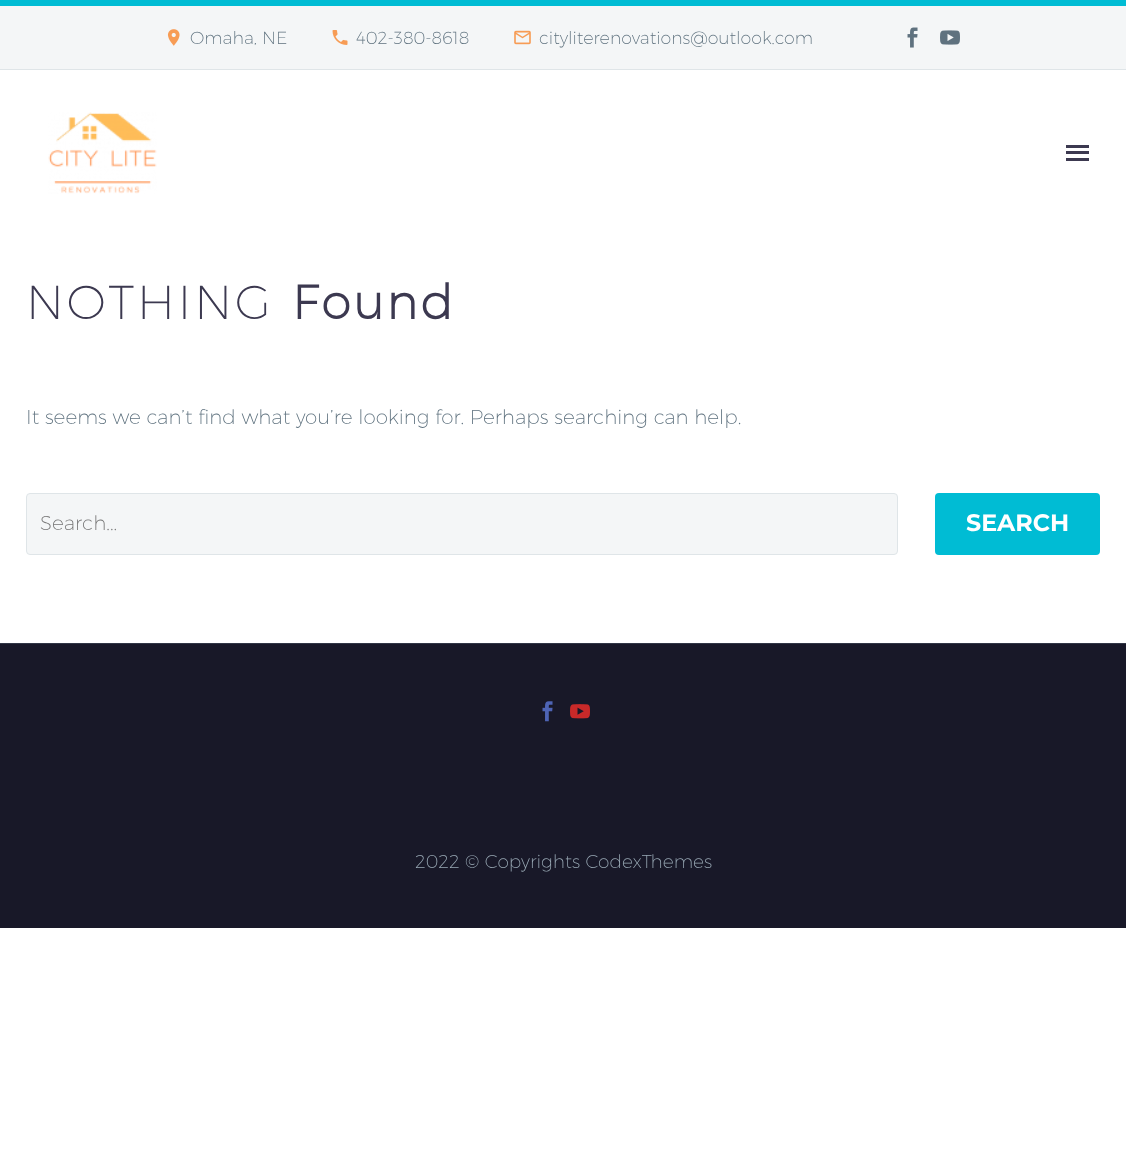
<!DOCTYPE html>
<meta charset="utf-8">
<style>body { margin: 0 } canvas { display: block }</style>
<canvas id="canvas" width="1126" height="1170"></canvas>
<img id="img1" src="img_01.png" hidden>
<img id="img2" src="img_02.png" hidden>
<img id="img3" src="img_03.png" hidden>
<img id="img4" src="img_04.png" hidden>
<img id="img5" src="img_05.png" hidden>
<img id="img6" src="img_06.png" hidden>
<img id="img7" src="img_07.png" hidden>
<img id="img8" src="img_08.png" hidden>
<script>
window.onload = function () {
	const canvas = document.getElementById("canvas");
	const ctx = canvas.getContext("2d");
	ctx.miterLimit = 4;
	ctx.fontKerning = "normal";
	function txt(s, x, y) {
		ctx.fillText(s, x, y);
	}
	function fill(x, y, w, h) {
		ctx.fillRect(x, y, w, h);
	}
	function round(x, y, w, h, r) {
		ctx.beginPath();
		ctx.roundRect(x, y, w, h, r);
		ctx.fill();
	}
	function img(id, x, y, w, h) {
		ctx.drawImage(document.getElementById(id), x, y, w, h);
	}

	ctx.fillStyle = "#FFFFFF";
	fill(0, 0, 1126, 1170);
	ctx.fillStyle = "#F4F6F7";
	fill(0, 6, 1126, 63);
	ctx.fillStyle = "#00BCD4";
	fill(0, 0, 1126, 6);
	ctx.fillStyle = "#DFE5E8";
	fill(0, 69, 1126, 1);
	img("img1", 167, 29, 13, 17);
	img("img2", 332, 30, 16, 15);
	img("img3", 514, 30, 17, 15);
	img("img4", 907, 27, 11, 21);
	img("img5", 940, 30, 20, 15);
	img("img6", 48, 112, 109, 82);
	ctx.fillStyle = "#3C3950";
	fill(1066, 145, 23, 3);
	fill(1066, 151, 23, 3);
	fill(1066, 158, 23, 3);
	ctx.fillStyle = "#F4F6F7";
	ctx.beginPath();
	ctx.roundRect(26.5, 493.5, 871, 61, 3.5);
	ctx.fill();
	ctx.strokeStyle = "#DFE5E8";
	ctx.stroke();
	ctx.fillStyle = "#00BCD4";
	round(935, 493, 165, 62, 4);
	ctx.fillStyle = "#181828";
	fill(0, 644, 1126, 284);
	ctx.fillStyle = "#313646";
	fill(0, 643, 1126, 1);
	img("img7", 542, 701, 11, 21);
	img("img8", 570, 704, 20, 15);
	ctx.font = "200 17.5px Montserrat";
	ctx.fillStyle = "#5F727F";
	txt("Omaha, NE", 190, 44);
	txt("402-380-8618", 356, 44);
	txt("cityliterenovations@outlook.com", 539, 44);
	ctx.letterSpacing = "3px";
	ctx.font = "200 47.5px Montserrat";
	ctx.fillStyle = "#3C3950";
	txt("NOTHING", 26, 319);
	ctx.font = "bold 47.5px Montserrat";
	txt("Found", 292, 319);
	ctx.letterSpacing = "0px";
	ctx.font = "200 20px Montserrat";
	ctx.fillStyle = "#5F727F";
	txt("It seems we can’t find what you’re looking for. Perhaps searching can help.", 26, 424);
	ctx.fillStyle = "#757575";
	txt("Search...", 40, 530);
	ctx.font = "bold 23.75px 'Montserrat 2'";
	ctx.fillStyle = "#FFFFFF";
	txt("SEARCH", 966, 531);
	ctx.font = "200 18.6px Montserrat";
	ctx.fillStyle = "#99A9B5";
	txt("2022 © Copyrights CodexThemes", 415, 868);
};
</script>
